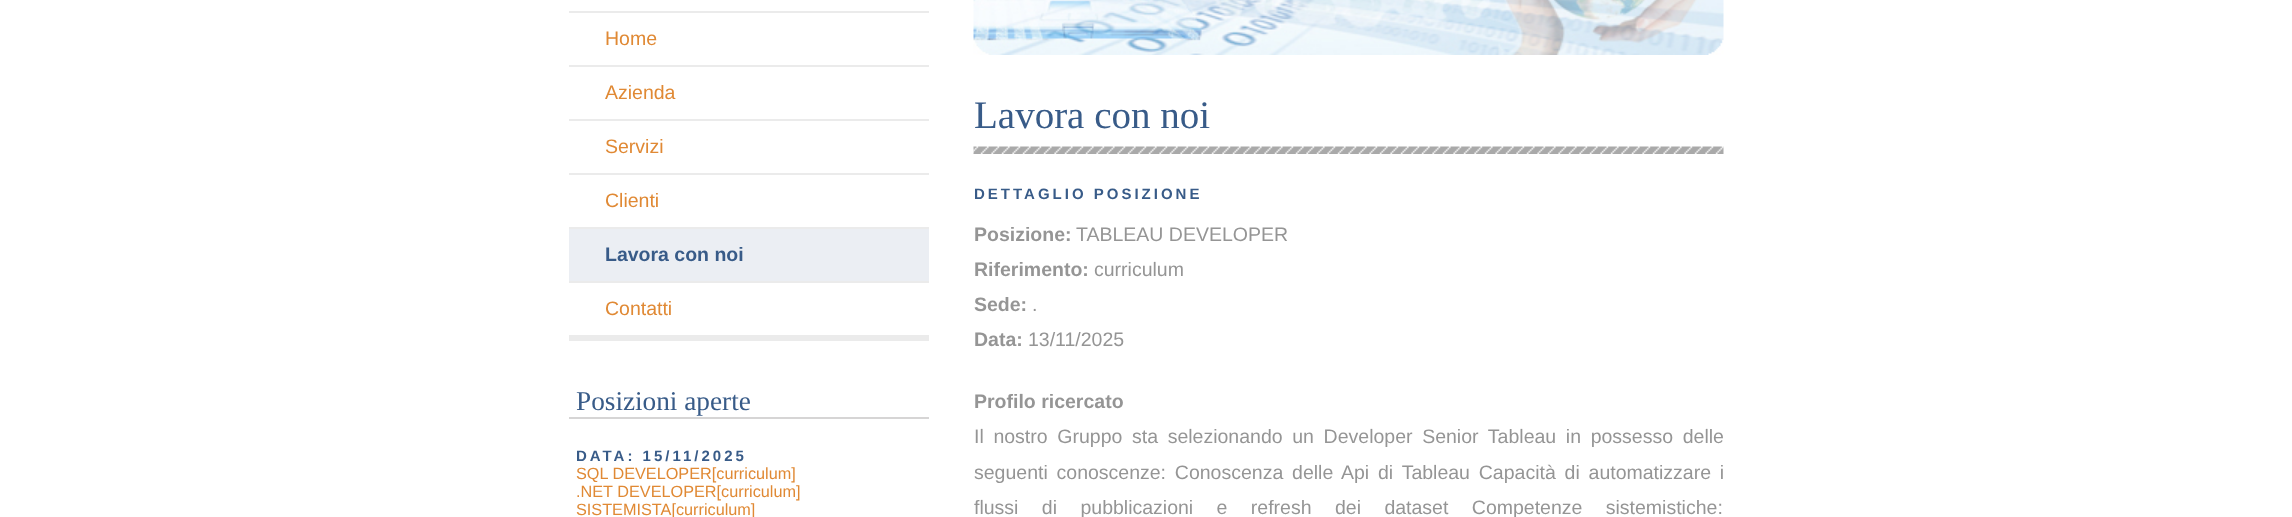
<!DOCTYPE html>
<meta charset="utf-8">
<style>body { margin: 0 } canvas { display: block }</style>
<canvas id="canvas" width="2292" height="517"></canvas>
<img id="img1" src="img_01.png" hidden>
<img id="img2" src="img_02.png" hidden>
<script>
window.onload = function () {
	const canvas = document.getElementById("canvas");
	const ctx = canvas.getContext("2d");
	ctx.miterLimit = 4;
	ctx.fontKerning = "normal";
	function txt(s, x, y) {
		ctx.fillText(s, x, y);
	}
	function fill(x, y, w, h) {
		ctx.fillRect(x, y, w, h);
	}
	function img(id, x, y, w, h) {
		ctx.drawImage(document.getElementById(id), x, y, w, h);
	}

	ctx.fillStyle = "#FFFFFF";
	fill(0, 0, 2292, 517);
	ctx.fillStyle = "#EBEBEB";
	fill(569, 335, 360, 6);
	fill(569, 11, 360, 2);
	fill(569, 65, 360, 2);
	fill(569, 119, 360, 2);
	fill(569, 173, 360, 2);
	ctx.fillStyle = "#EBEEF3";
	fill(569, 229, 360, 52);
	ctx.fillStyle = "#EBEBEB";
	fill(569, 227, 360, 2);
	fill(569, 281, 360, 2);
	ctx.fillStyle = "#D6D5D5";
	fill(569, 417, 360, 2);
	img("img1", 973, 0, 751, 55);
	img("img2", 973, 146, 751, 8);
	ctx.font = "19.5px Liberation Sans";
	ctx.fillStyle = "#E08934";
	txt("Home", 605, 45);
	txt("Azienda", 605, 99);
	txt("Servizi", 605, 153);
	txt("Clienti", 605, 207);
	ctx.font = "bold 19.5px Liberation Sans";
	ctx.fillStyle = "#385B88";
	txt("Lavora con noi", 605, 261);
	ctx.font = "19.5px Liberation Sans";
	ctx.fillStyle = "#E08934";
	txt("Contatti", 605, 315);
	ctx.font = "27.25px Liberation Serif";
	ctx.fillStyle = "#385B88";
	txt("Posizioni aperte", 576, 410);
	ctx.letterSpacing = "3px";
	ctx.font = "bold 15px Liberation Sans";
	txt("DATA: 15/11/2025", 576, 461);
	ctx.letterSpacing = "0px";
	ctx.font = "16.25px Liberation Sans";
	ctx.fillStyle = "#E08934";
	txt("SQL DEVELOPER[curriculum]", 576, 479);
	txt(".NET DEVELOPER[curriculum]", 576, 497);
	txt("SISTEMISTA[curriculum]", 576, 515);
	ctx.font = "39px Liberation Serif";
	ctx.fillStyle = "#385B88";
	txt("Lavora con noi", 974, 128);
	ctx.letterSpacing = "3px";
	ctx.font = "bold 15px Liberation Sans";
	txt("DETTAGLIO POSIZIONE", 974, 199);
	ctx.letterSpacing = "0px";
	ctx.font = "bold 19.5px Liberation Sans";
	ctx.fillStyle = "#959595";
	txt("Posizione:", 974, 241);
	ctx.font = "19.5px Liberation Sans";
	txt("TABLEAU DEVELOPER", 1076, 241);
	ctx.font = "bold 19.5px Liberation Sans";
	txt("Riferimento:", 974, 276);
	ctx.font = "19.5px Liberation Sans";
	txt("curriculum", 1094, 276);
	ctx.font = "bold 19.5px Liberation Sans";
	txt("Sede:", 974, 311);
	ctx.font = "19.5px Liberation Sans";
	txt(".", 1032, 311);
	ctx.font = "bold 19.5px Liberation Sans";
	txt("Data:", 974, 346);
	ctx.font = "19.5px Liberation Sans";
	txt("13/11/2025", 1028, 346);
	ctx.font = "bold 19.5px Liberation Sans";
	txt("Profilo ricercato", 974, 408);
	ctx.wordSpacing = "4.25px";
	ctx.font = "19.5px Liberation Sans";
	txt("Il nostro Gruppo sta selezionando un Developer Senior Tableau in possesso delle", 974, 443);
	ctx.wordSpacing = "3.4px";
	txt("seguenti conoscenze: Conoscenza delle Api di Tableau Capacità di automatizzare i", 974, 479);
	ctx.wordSpacing = "18px";
	txt("flussi di pubblicazioni e refresh dei dataset Competenze sistemistiche:", 974, 514);
};
</script>
